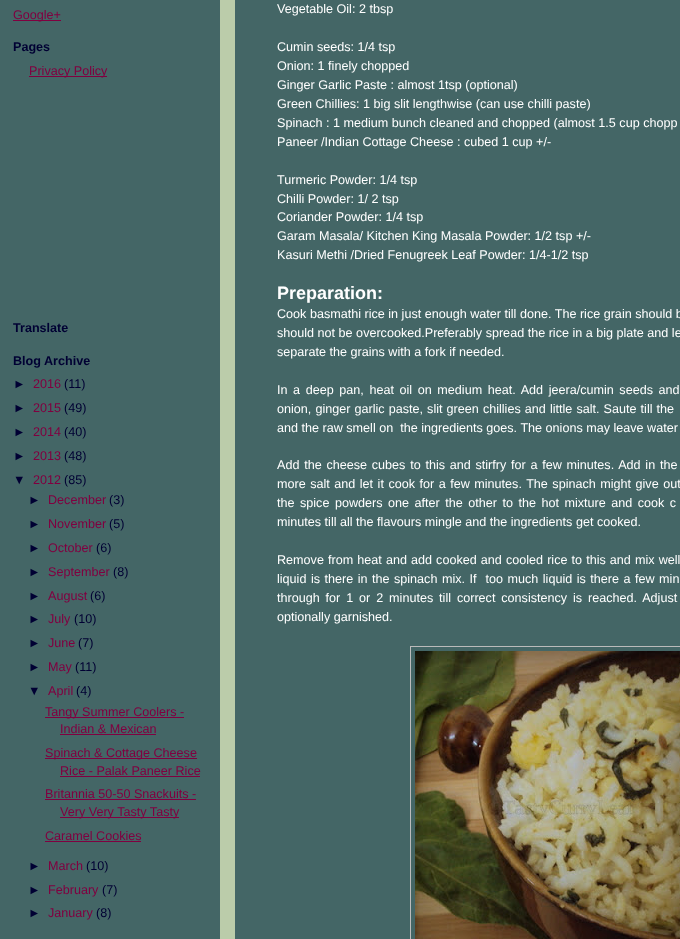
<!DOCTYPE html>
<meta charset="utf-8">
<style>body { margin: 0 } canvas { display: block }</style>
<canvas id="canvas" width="680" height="939"></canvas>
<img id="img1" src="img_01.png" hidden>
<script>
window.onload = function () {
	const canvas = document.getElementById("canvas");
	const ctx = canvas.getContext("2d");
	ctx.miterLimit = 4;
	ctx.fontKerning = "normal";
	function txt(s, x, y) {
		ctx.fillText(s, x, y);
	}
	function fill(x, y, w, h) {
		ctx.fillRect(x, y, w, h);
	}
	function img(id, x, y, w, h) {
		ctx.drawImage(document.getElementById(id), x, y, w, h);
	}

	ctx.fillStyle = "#BBCCAA";
	fill(0, 0, 680, 939);
	ctx.fillStyle = "#446666";
	fill(0, 0, 220, 939);
	ctx.fillStyle = "#800040";
	fill(13, 20, 48, 1);
	fill(29, 76, 78, 1);
	fill(45, 717, 139, 1);
	fill(60, 734, 96, 1);
	fill(45, 758, 152, 1);
	fill(60, 776, 140, 1);
	fill(45, 799, 151, 1);
	fill(60, 817, 119, 1);
	fill(45, 841, 96, 1);
	ctx.fillStyle = "#446666";
	fill(235, 0, 445, 939);
	ctx.strokeStyle = "#BBBBBB";
	ctx.strokeRect(410.5, 646.5, 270, 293);
	img("img1", 415, 651, 265, 288);
	ctx.font = "12.6px Liberation Sans";
	ctx.fillStyle = "#800040";
	txt("Google+", 13, 19);
	ctx.font = "bold 12.6px Liberation Sans";
	ctx.fillStyle = "#000033";
	txt("Pages", 13, 51);
	ctx.font = "12.6px Liberation Sans";
	ctx.fillStyle = "#800040";
	txt("Privacy Policy", 29, 75);
	ctx.font = "bold 12.6px Liberation Sans";
	ctx.fillStyle = "#000033";
	txt("Translate", 13, 332);
	txt("Blog Archive", 13, 365);
	ctx.font = "12.6px Liberation Sans";
	txt("►", 13, 388);
	ctx.fillStyle = "#800040";
	txt("2016", 33, 388);
	ctx.fillStyle = "#000033";
	txt("(11)", 64, 388);
	txt("►", 13, 412);
	ctx.fillStyle = "#800040";
	txt("2015", 33, 412);
	ctx.fillStyle = "#000033";
	txt("(49)", 64, 412);
	txt("►", 13, 436);
	ctx.fillStyle = "#800040";
	txt("2014", 33, 436);
	ctx.fillStyle = "#000033";
	txt("(40)", 64, 436);
	txt("►", 13, 460);
	ctx.fillStyle = "#800040";
	txt("2013", 33, 460);
	ctx.fillStyle = "#000033";
	txt("(48)", 64, 460);
	txt("▼", 13, 484);
	ctx.fillStyle = "#800040";
	txt("2012", 33, 484);
	ctx.fillStyle = "#000033";
	txt("(85)", 64, 484);
	txt("►", 28, 504);
	ctx.fillStyle = "#800040";
	txt("December", 48, 504);
	ctx.fillStyle = "#000033";
	txt("(3)", 109, 504);
	txt("►", 28, 528);
	ctx.fillStyle = "#800040";
	txt("November", 48, 528);
	ctx.fillStyle = "#000033";
	txt("(5)", 109, 528);
	txt("►", 28, 552);
	ctx.fillStyle = "#800040";
	txt("October", 48, 552);
	ctx.fillStyle = "#000033";
	txt("(6)", 96, 552);
	txt("►", 28, 576);
	ctx.fillStyle = "#800040";
	txt("September", 48, 576);
	ctx.fillStyle = "#000033";
	txt("(8)", 113, 576);
	txt("►", 28, 600);
	ctx.fillStyle = "#800040";
	txt("August", 48, 600);
	ctx.fillStyle = "#000033";
	txt("(6)", 90, 600);
	txt("►", 28, 623);
	ctx.fillStyle = "#800040";
	txt("July", 48, 623);
	ctx.fillStyle = "#000033";
	txt("(10)", 74, 623);
	txt("►", 28, 647);
	ctx.fillStyle = "#800040";
	txt("June", 48, 647);
	ctx.fillStyle = "#000033";
	txt("(7)", 78, 647);
	txt("►", 28, 671);
	ctx.fillStyle = "#800040";
	txt("May", 48, 671);
	ctx.fillStyle = "#000033";
	txt("(11)", 75, 671);
	txt("▼", 28, 695);
	ctx.fillStyle = "#800040";
	txt("April", 48, 695);
	ctx.fillStyle = "#000033";
	txt("(4)", 76, 695);
	ctx.fillStyle = "#800040";
	txt("Tangy Summer Coolers -", 45, 716);
	txt("Indian & Mexican", 60, 733);
	txt("Spinach & Cottage Cheese", 45, 757);
	txt("Rice - Palak Paneer Rice", 60, 775);
	txt("Britannia 50-50 Snackuits -", 45, 798);
	txt("Very Very Tasty Tasty", 60, 816);
	txt("Caramel Cookies", 45, 840);
	ctx.fillStyle = "#000033";
	txt("►", 28, 870);
	ctx.fillStyle = "#800040";
	txt("March", 48, 870);
	ctx.fillStyle = "#000033";
	txt("(10)", 86, 870);
	txt("►", 28, 894);
	ctx.fillStyle = "#800040";
	txt("February", 48, 894);
	ctx.fillStyle = "#000033";
	txt("(7)", 102, 894);
	txt("►", 28, 917);
	ctx.fillStyle = "#800040";
	txt("January", 48, 917);
	ctx.fillStyle = "#000033";
	txt("(8)", 96, 917);
	ctx.fillStyle = "#FFFFFF";
	txt("Vegetable Oil: 2 tbsp", 277, 13);
	txt("Cumin seeds: 1/4 tsp", 277, 51);
	txt("Onion: 1 finely chopped", 277, 70);
	txt("Ginger Garlic Paste : almost 1tsp (optional)", 277, 89);
	txt("Green Chillies: 1 big slit lengthwise (can use chilli paste)", 277, 108);
	txt("Spinach : 1 medium bunch cleaned and chopped (almost 1.5 cup chopp", 277, 127);
	txt("Paneer /Indian Cottage Cheese : cubed 1 cup +/-", 277, 146);
	txt("Turmeric Powder: 1/4 tsp", 277, 184);
	txt("Chilli Powder: 1/ 2 tsp", 277, 203);
	txt("Coriander Powder: 1/4 tsp", 277, 221);
	txt("Garam Masala/ Kitchen King Masala Powder: 1/2 tsp +/-", 277, 240);
	txt("Kasuri Methi /Dried Fenugreek Leaf Powder: 1/4-1/2 tsp", 277, 259);
	ctx.font = "bold 18px Liberation Sans";
	txt("Preparation:", 277, 299);
	ctx.font = "12.6px Liberation Sans";
	txt("Cook basmathi rice in just enough water till done. The rice grain should b", 277, 318);
	txt("should not be overcooked.Preferably spread the rice in a big plate and le", 277, 337);
	txt("separate the grains with a fork if needed.", 277, 356);
	ctx.wordSpacing = "2.1px";
	txt("In a deep pan, heat oil on medium heat. Add jeera/cumin seeds and", 277, 394);
	ctx.wordSpacing = "0.6px";
	txt("onion, ginger garlic paste, slit green chillies and little salt. Saute till the", 277, 413);
	ctx.wordSpacing = "0px";
	txt("and the raw smell on  the ingredients goes. The onions may leave water", 277, 432);
	ctx.wordSpacing = "1.25px";
	txt("Add the cheese cubes to this and stirfry for a few minutes. Add in the", 277, 469);
	ctx.wordSpacing = "1px";
	txt("more salt and let it cook for a few minutes. The spinach might give out", 277, 488);
	ctx.wordSpacing = "2px";
	txt("the spice powders one after the other to the hot mixture and cook c", 277, 507);
	ctx.wordSpacing = "0px";
	txt("minutes till all the flavours mingle and the ingredients get cooked.", 277, 526);
	ctx.wordSpacing = "0.6px";
	txt("Remove from heat and add cooked and cooled rice to this and mix well", 277, 564);
	ctx.wordSpacing = "1px";
	txt("liquid is there in the spinach mix. If  too much liquid is there a few min", 277, 583);
	ctx.wordSpacing = "2.4px";
	txt("through for 1 or 2 minutes till correct consistency is reached. Adjust", 277, 602);
	ctx.wordSpacing = "0px";
	txt("optionally garnished.", 277, 621);
};
</script>
